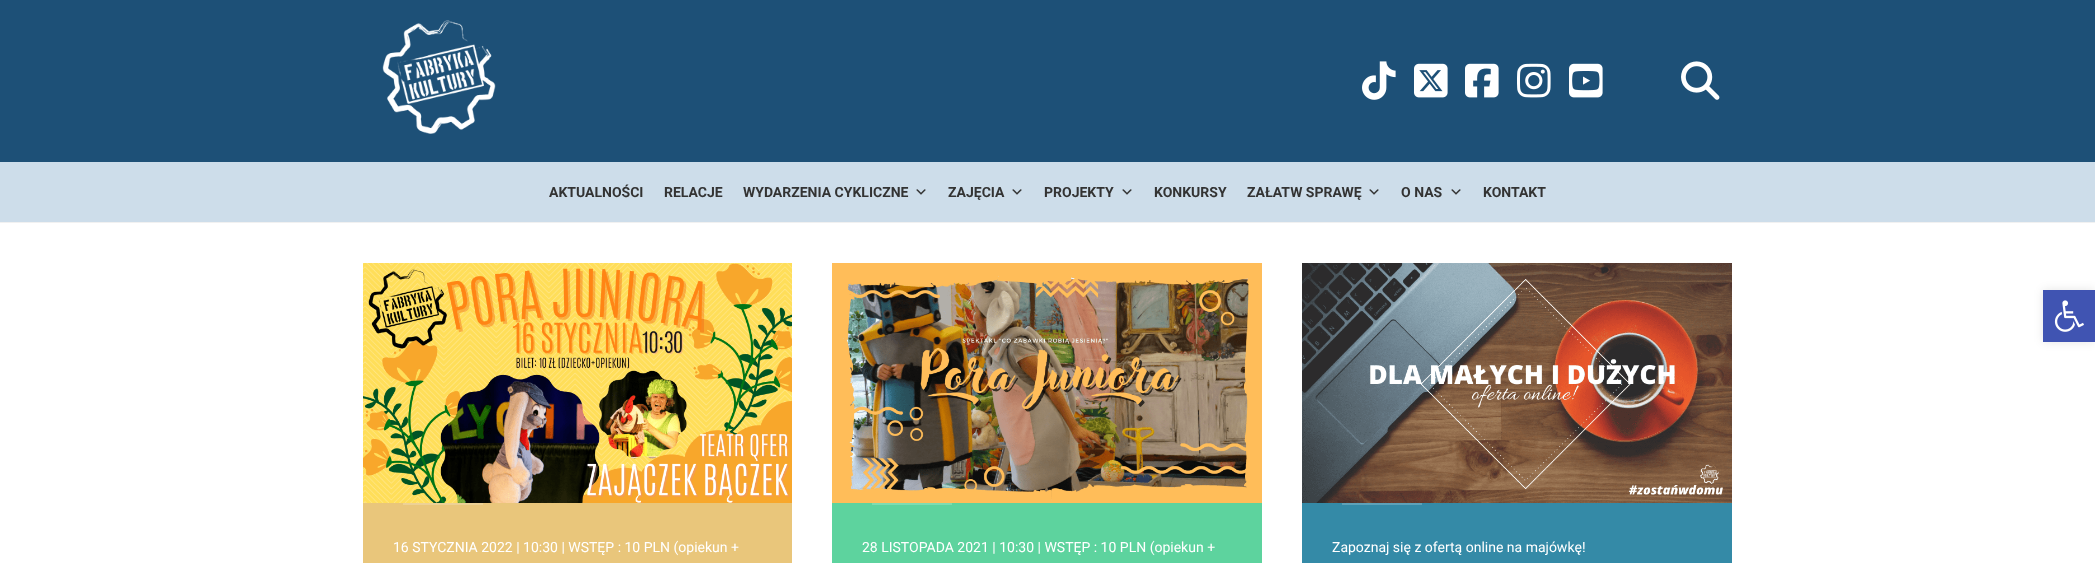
<!DOCTYPE html>
<meta charset="utf-8">
<style>body { margin: 0 } canvas { display: block }</style>
<canvas id="canvas" width="2095" height="563"></canvas>
<img id="img1" src="img_01.png" hidden>
<img id="img2" src="img_02.png" hidden>
<img id="img3" src="img_03.png" hidden>
<img id="img4" src="img_04.png" hidden>
<img id="img5" src="img_05.png" hidden>
<img id="img6" src="img_06.png" hidden>
<img id="img7" src="img_07.png" hidden>
<img id="img8" src="img_08.png" hidden>
<img id="img9" src="img_09.png" hidden>
<img id="img10" src="img_10.png" hidden>
<img id="img11" src="img_11.png" hidden>
<img id="img12" src="img_12.png" hidden>
<script>
window.onload = function () {
	const canvas = document.getElementById("canvas");
	const ctx = canvas.getContext("2d");
	ctx.miterLimit = 4;
	ctx.fontKerning = "normal";
	function txt(s, x, y) {
		ctx.fillText(s, x, y);
	}
	function fill(x, y, w, h) {
		ctx.fillRect(x, y, w, h);
	}
	function img(id, x, y, w, h) {
		ctx.drawImage(document.getElementById(id), x, y, w, h);
	}

	ctx.fillStyle = "#FFFFFF";
	fill(0, 0, 2095, 563);
	ctx.fillStyle = "#1D5077";
	fill(0, 0, 2095, 162);
	ctx.fillStyle = "#F1F1F1";
	fill(0, 222, 2095, 1);
	img("img1", 382, 20, 114, 114);
	img("img2", 1362, 61, 34, 39);
	img("img3", 1414, 63, 34, 35);
	img("img4", 1465, 63, 34, 35);
	img("img5", 1517, 63, 34, 35);
	img("img6", 1569, 63, 34, 35);
	img("img7", 1681, 61, 39, 39);
	ctx.fillStyle = "#CDDDEA";
	fill(0, 162, 2095, 60);
	img("img8", 916, 189, 10, 6);
	img("img8", 1012, 189, 10, 6);
	img("img8", 1122, 189, 10, 6);
	img("img8", 1369, 189, 10, 6);
	img("img8", 1451, 189, 10, 6);
	ctx.fillStyle = "rgba(0, 0, 0, 0.1)";
	ctx.filter = "blur(5px)";
	ctx.beginPath();
	ctx.rect(2043, 290, 52, 52);
	ctx.fill();
	ctx.filter = "none";
	ctx.fillStyle = "#4054B2";
	fill(2043, 290, 52, 52);
	img("img9", 2054, 300, 30, 32);
	ctx.fillStyle = "#E9C67B";
	fill(363, 503, 429, 60);
	img("img10", 363, 263, 429, 240);
	ctx.fillStyle = "#EDD195";
	fill(403, 503, 80, 2);
	ctx.fillStyle = "#5DD39E";
	fill(832, 503, 430, 60);
	img("img11", 832, 263, 430, 240);
	ctx.fillStyle = "#7DDCB1";
	fill(872, 503, 80, 2);
	ctx.fillStyle = "#348AA7";
	fill(1302, 503, 430, 60);
	img("img12", 1302, 263, 430, 240);
	ctx.fillStyle = "#5DA1B9";
	fill(1342, 503, 80, 2);
	ctx.font = "bold 14px Roboto";
	ctx.fillStyle = "#333333";
	txt("AKTUALNOŚCI", 549, 197);
	txt("RELACJE", 664, 197);
	txt("WYDARZENIA CYKLICZNE", 743, 197);
	txt("ZAJĘCIA", 948, 197);
	txt("PROJEKTY", 1044, 197);
	txt("KONKURSY", 1154, 197);
	txt("ZAŁATW SPRAWĘ", 1247, 197);
	txt("O NAS", 1401, 197);
	txt("KONTAKT", 1483, 197);
	ctx.font = "14px Roboto";
	ctx.fillStyle = "#FFFFFF";
	txt("16 STYCZNIA 2022 | 10:30 | WSTĘP : 10 PLN (opiekun +", 393, 552);
	txt("28 LISTOPADA 2021 | 10:30 | WSTĘP : 10 PLN (opiekun +", 862, 552);
	txt("Zapoznaj się z ofertą online na majówkę!", 1332, 552);
};
</script>
